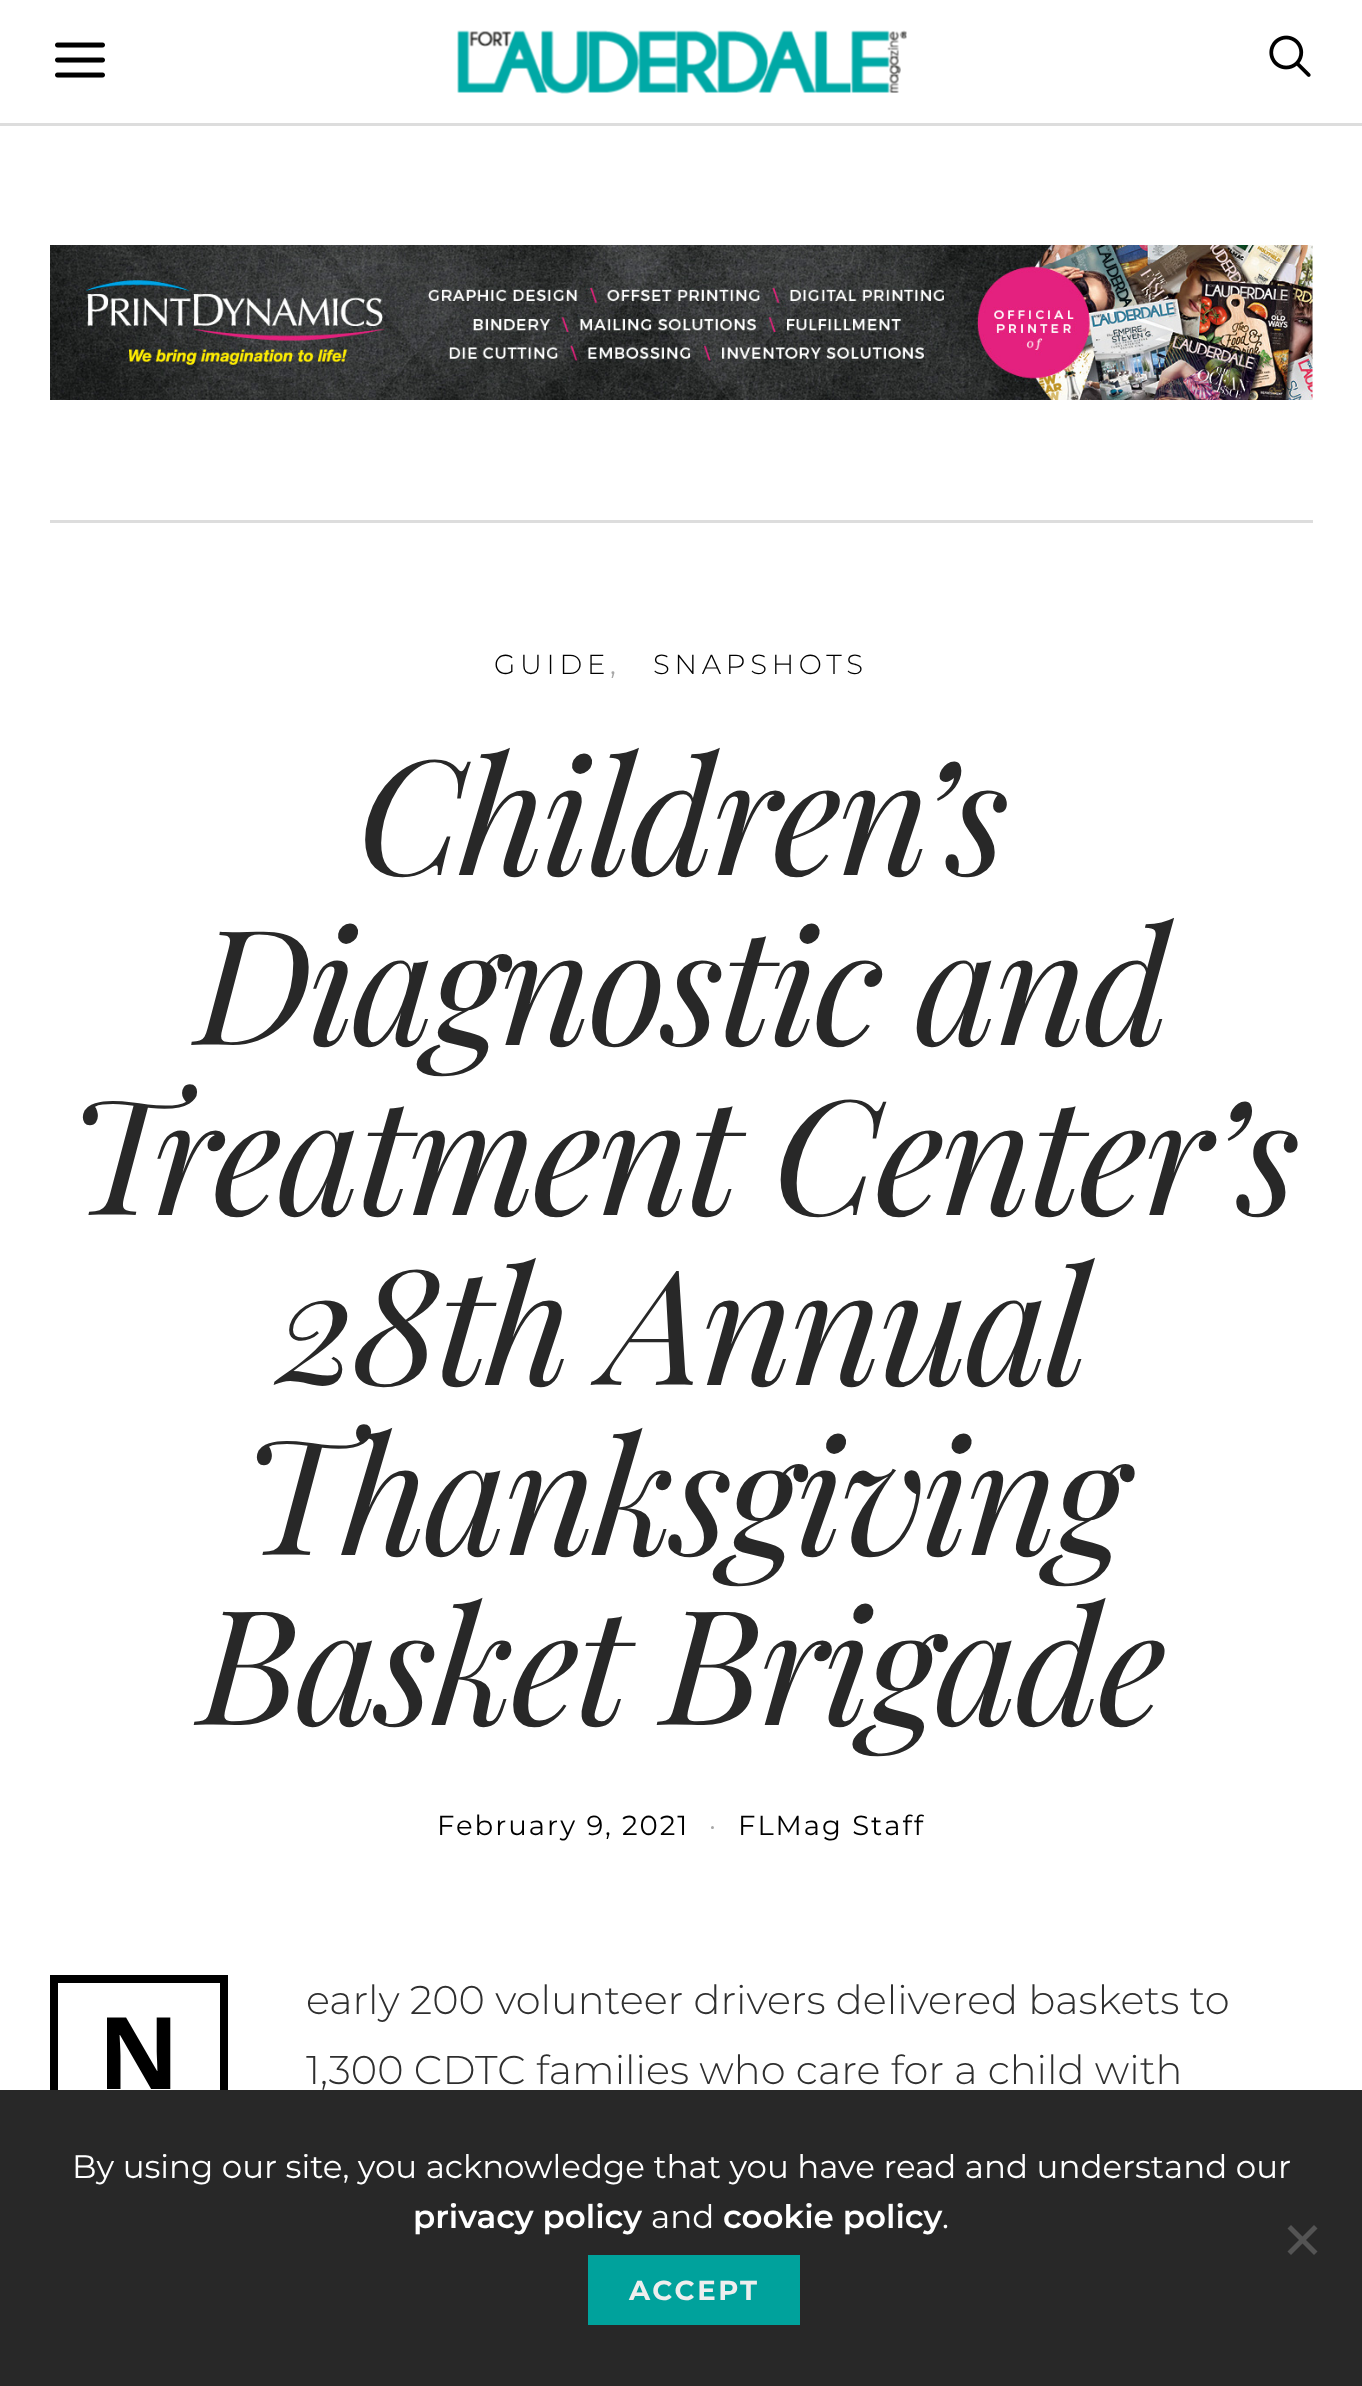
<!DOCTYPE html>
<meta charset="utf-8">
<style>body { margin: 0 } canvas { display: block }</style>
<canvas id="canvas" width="1362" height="2386"></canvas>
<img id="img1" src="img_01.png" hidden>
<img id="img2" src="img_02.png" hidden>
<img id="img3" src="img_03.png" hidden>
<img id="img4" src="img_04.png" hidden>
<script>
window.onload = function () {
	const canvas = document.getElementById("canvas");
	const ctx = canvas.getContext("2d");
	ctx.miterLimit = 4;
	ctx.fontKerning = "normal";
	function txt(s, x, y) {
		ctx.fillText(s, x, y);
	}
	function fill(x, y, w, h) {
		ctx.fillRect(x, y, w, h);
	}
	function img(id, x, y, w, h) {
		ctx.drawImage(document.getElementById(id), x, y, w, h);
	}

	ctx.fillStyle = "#FFFFFF";
	fill(0, 0, 1362, 2386);
	ctx.fillStyle = "#DDDDDD";
	fill(0, 123, 1362, 3);
	img("img1", 55, 42, 50, 36);
	img("img2", 457, 30, 450, 64);
	img("img3", 1269, 35, 42, 42);
	fill(50, 520, 1263, 3);
	img("img4", 50, 245, 1263, 155);
	ctx.strokeStyle = "#000000";
	ctx.lineWidth = 8;
	ctx.strokeRect(54, 1979, 170, 147);
	ctx.fillStyle = "#282828";
	fill(0, 2090, 1362, 296);
	ctx.fillStyle = "#545454";
	ctx.beginPath();
	ctx.moveTo(1314, 2225);
	ctx.lineTo(1317.5, 2228.5);
	ctx.lineTo(1291, 2255);
	ctx.lineTo(1287.5, 2251.5);
	ctx.closePath();
	ctx.fill();
	ctx.beginPath();
	ctx.moveTo(1287.5, 2228.5);
	ctx.lineTo(1291, 2225);
	ctx.lineTo(1317.5, 2251.5);
	ctx.lineTo(1314, 2255);
	ctx.closePath();
	ctx.fill();
	ctx.fillStyle = "#00A29C";
	fill(588, 2255, 212, 70);
	ctx.letterSpacing = "4.75px";
	ctx.font = "300 27.5px Montserrat";
	ctx.fillStyle = "#000000";
	txt("GUIDE", 494, 674);
	ctx.font = "27.5px Montserrat";
	ctx.fillStyle = "#A8A8A8";
	txt(",", 610, 674);
	ctx.font = "300 27.5px Montserrat";
	ctx.fillStyle = "#000000";
	txt("SNAPSHOTS", 653, 674);
	ctx.letterSpacing = "-4px";
	ctx.font = "italic 160px Playfair Display";
	ctx.fillStyle = "#282828";
	txt("Children’s", 357, 875);
	txt("Diagnostic and", 196, 1045);
	txt("Treatment Center’s", 67, 1215);
	txt("28th Annual", 277, 1385);
	txt("Thanksgiving", 241, 1555);
	txt("Basket Brigade", 199, 1725);
	ctx.letterSpacing = "2px";
	ctx.font = "27.5px Montserrat";
	ctx.fillStyle = "#000000";
	txt("February 9, 2021", 437, 1835);
	ctx.fillStyle = "#A8A8A8";
	txt("·", 709, 1835);
	ctx.fillStyle = "#000000";
	txt("FLMag Staff", 738, 1835);
	ctx.letterSpacing = "0px";
	ctx.font = "300 40px Montserrat";
	ctx.fillStyle = "#2F2F2F";
	txt("early 200 volunteer drivers delivered baskets to", 306, 2014);
	ctx.font = "bold 100px Noto Sans";
	ctx.fillStyle = "#000000";
	txt("N", 98, 2089);
	ctx.font = "300 40px Montserrat";
	ctx.fillStyle = "#2F2F2F";
	txt("1,300 CDTC families who care for a child with", 306, 2084);
	ctx.font = "32.5px Montserrat";
	ctx.fillStyle = "#FFFFFF";
	txt("By using our site, you acknowledge that you have read and understand our", 72, 2178);
	ctx.font = "600 32.5px Montserrat";
	txt("privacy policy", 413, 2228);
	ctx.font = "32.5px Montserrat";
	txt("and", 651, 2228);
	ctx.font = "600 32.5px Montserrat";
	txt("cookie policy", 723, 2228);
	ctx.font = "32.5px Montserrat";
	txt(".", 942, 2228);
	ctx.letterSpacing = "2.5px";
	ctx.font = "bold 27.5px Montserrat";
	ctx.fillStyle = "#EEEEEE";
	txt("ACCEPT", 629, 2300);
};
</script>
